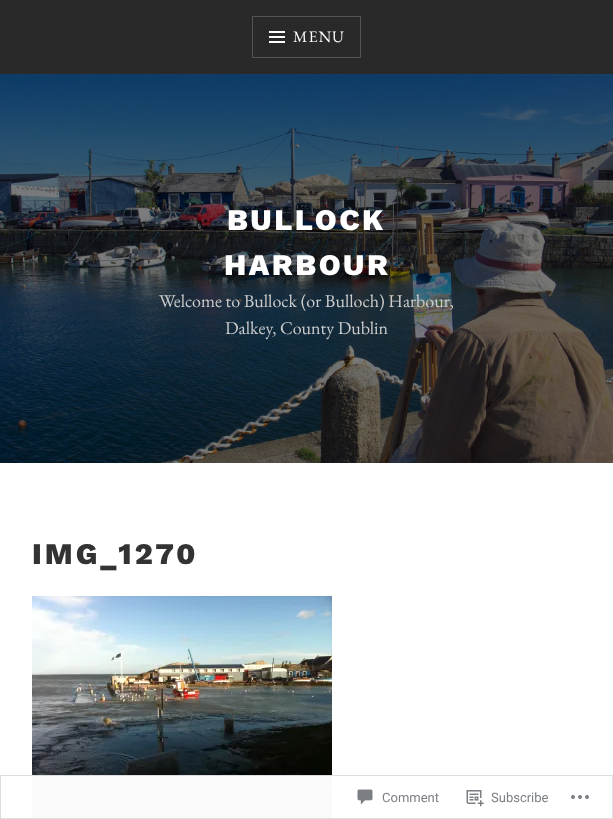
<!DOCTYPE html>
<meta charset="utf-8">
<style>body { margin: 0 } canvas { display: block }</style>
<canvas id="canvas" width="613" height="819"></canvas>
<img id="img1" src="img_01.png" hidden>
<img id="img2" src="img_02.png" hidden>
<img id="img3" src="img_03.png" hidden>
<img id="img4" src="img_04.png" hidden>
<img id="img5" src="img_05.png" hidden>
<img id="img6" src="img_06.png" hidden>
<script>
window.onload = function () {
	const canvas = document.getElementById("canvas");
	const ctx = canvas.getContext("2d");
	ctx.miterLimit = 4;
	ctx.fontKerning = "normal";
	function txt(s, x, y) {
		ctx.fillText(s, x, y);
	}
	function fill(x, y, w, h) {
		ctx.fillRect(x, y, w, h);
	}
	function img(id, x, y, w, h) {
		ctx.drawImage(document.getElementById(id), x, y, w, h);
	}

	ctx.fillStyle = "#FFFFFF";
	fill(0, 0, 613, 819);
	ctx.fillStyle = "#29292A";
	fill(0, 0, 613, 74);
	ctx.strokeStyle = "#545455";
	ctx.strokeRect(252.5, 16.5, 108, 41);
	img("img1", 269, 31, 16, 12);
	img("img2", 0, 74, 613, 389);
	img("img3", 32, 596, 300, 223);
	ctx.fillStyle = "rgba(255, 255, 255, 0.98)";
	fill(32, 775, 300, 44);
	ctx.strokeStyle = "rgba(220, 220, 222, 0.98)";
	ctx.strokeRect(0.5, 775.5, 612, 43);
	img("img4", 357, 789, 16, 16);
	img("img5", 466, 790, 18, 17);
	img("img6", 571, 795, 18, 4);
	ctx.letterSpacing = "1px";
	ctx.font = "16px EB Garamond";
	ctx.fillStyle = "#FFFFFF";
	txt("MENU", 293, 42);
	ctx.letterSpacing = "2.5px";
	ctx.font = "800 30px Work Sans";
	txt("BULLOCK", 227, 230);
	txt("HARBOUR", 224, 275);
	ctx.letterSpacing = "0px";
	ctx.font = "18px EB Garamond";
	ctx.fillStyle = "#CCCCCC";
	txt("Welcome to Bullock (or Bulloch) Harbour,", 159, 307);
	txt("Dalkey, County Dublin", 225, 334);
	ctx.letterSpacing = "3px";
	ctx.font = "800 30px Work Sans";
	ctx.fillStyle = "#333333";
	txt("IMG_1270", 32, 564);
	ctx.letterSpacing = "0px";
	ctx.font = "13px Roboto";
	ctx.fillStyle = "#7B7F85";
	txt("Comment", 382, 802);
	txt("Subscribe", 491, 802);
};
</script>
